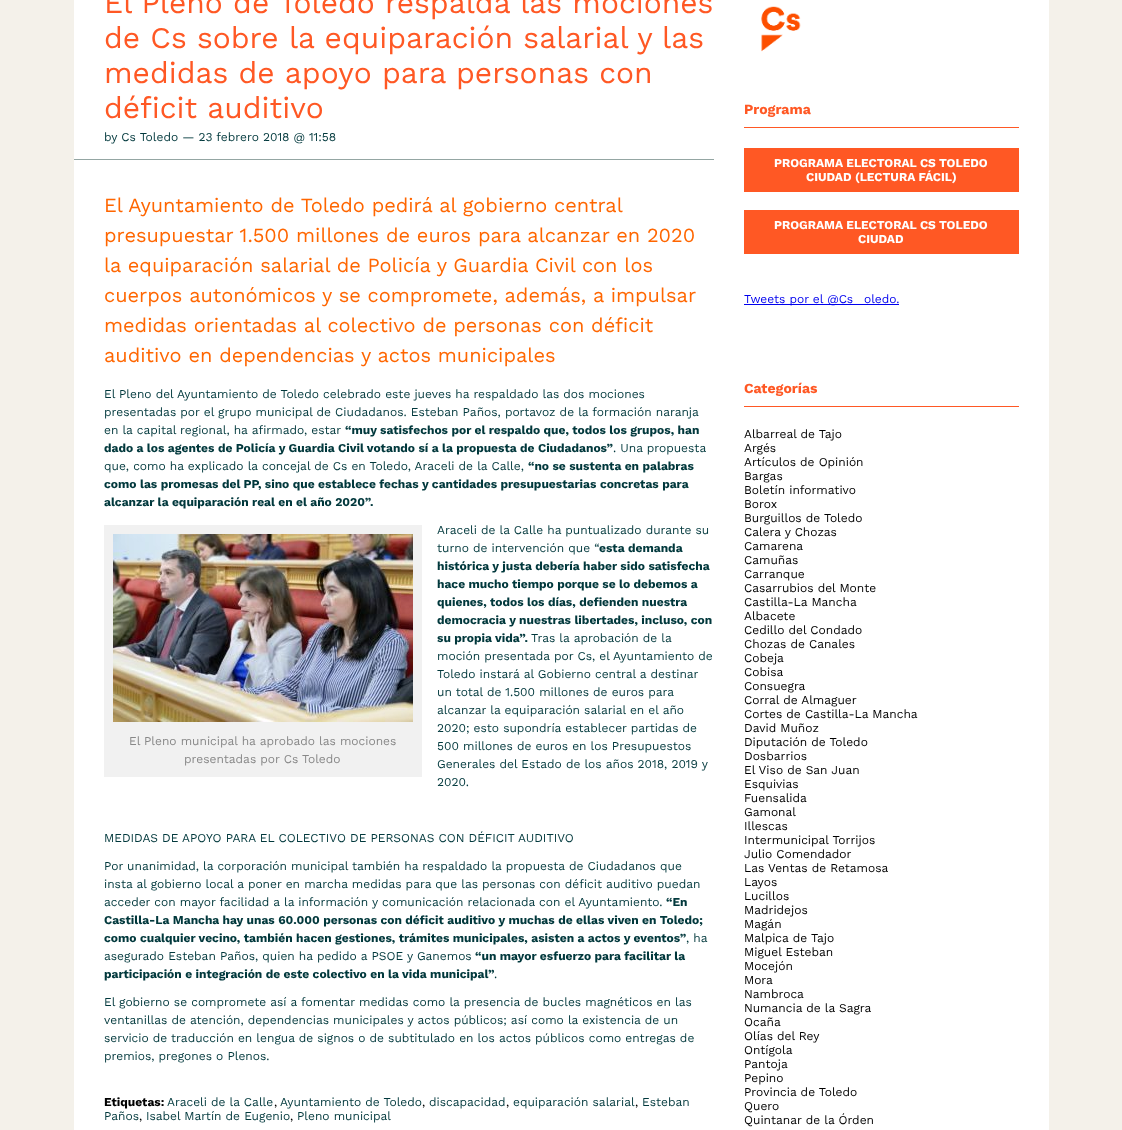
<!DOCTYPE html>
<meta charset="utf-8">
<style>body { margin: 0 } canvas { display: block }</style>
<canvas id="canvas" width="1122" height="1130"></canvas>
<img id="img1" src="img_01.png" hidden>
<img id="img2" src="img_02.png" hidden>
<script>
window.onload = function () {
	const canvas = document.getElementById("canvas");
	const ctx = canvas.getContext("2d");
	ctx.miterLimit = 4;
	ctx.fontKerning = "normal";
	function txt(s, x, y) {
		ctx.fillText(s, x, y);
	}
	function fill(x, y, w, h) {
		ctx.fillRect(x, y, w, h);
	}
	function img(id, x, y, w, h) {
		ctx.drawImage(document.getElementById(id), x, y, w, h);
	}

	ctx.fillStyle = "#F4F1EA";
	fill(0, 0, 1122, 1130);
	ctx.fillStyle = "#FFFFFF";
	fill(74, 0, 975, 1130);
	ctx.fillStyle = "#94A6A3";
	fill(74, 159, 640, 1);
	ctx.fillStyle = "#F1F1F1";
	fill(104, 525, 318, 252);
	img("img1", 113, 534, 300, 188);
	img("img2", 761, 6, 40, 46);
	ctx.fillStyle = "#FF5824";
	fill(744, 127, 275, 1);
	fill(744, 148, 275, 44);
	fill(744, 210, 275, 44);
	ctx.fillStyle = "#0000EE";
	fill(744, 304, 155, 1);
	ctx.fillStyle = "#FF5824";
	fill(744, 406, 275, 1);
	ctx.font = "30px Work Sans";
	txt("El Pleno de Toledo respalda las mociones", 104, 13);
	txt("de Cs sobre la equiparación salarial y las", 104, 48);
	txt("medidas de apoyo para personas con", 104, 83);
	txt("déficit auditivo", 104, 118);
	ctx.font = "12px Work Sans";
	ctx.fillStyle = "#01383C";
	txt("by Cs Toledo — 23 febrero 2018 @ 11:58", 104, 141);
	ctx.font = "20px Work Sans";
	ctx.fillStyle = "#FF6600";
	txt("El Ayuntamiento de Toledo pedirá al gobierno central", 104, 212);
	txt("presupuestar 1.500 millones de euros para alcanzar en 2020", 104, 242);
	txt("la equiparación salarial de Policía y Guardia Civil con los", 104, 272);
	txt("cuerpos autonómicos y se compromete, además, a impulsar", 104, 302);
	txt("medidas orientadas al colectivo de personas con déficit", 104, 332);
	txt("auditivo en dependencias y actos municipales", 104, 362);
	ctx.font = "12px Work Sans";
	ctx.fillStyle = "#01383C";
	txt("El Pleno del Ayuntamiento de Toledo celebrado este jueves ha respaldado las dos mociones", 104, 398);
	txt("presentadas por el grupo municipal de Ciudadanos. Esteban Paños, portavoz de la formación naranja", 104, 416);
	txt("en la capital regional, ha afirmado, estar", 104, 434);
	ctx.font = "bold 12px Work Sans";
	txt("“muy satisfechos por el respaldo que, todos los grupos, han", 345, 434);
	txt("dado a los agentes de Policía y Guardia Civil votando sí a la propuesta de Ciudadanos”", 104, 452);
	ctx.font = "12px Work Sans";
	txt(". Una propuesta", 613, 452);
	txt("que, como ha explicado la concejal de Cs en Toledo, Araceli de la Calle,", 104, 470);
	ctx.font = "bold 12px Work Sans";
	txt("“no se sustenta en palabras", 528, 470);
	txt("como las promesas del PP, sino que establece fechas y cantidades presupuestarias concretas para", 104, 488);
	txt("alcanzar la equiparación real en el año 2020”.", 104, 506);
	ctx.font = "12px Work Sans";
	ctx.fillStyle = "#888888";
	txt("El Pleno municipal ha aprobado las mociones", 129, 745);
	txt("presentadas por Cs Toledo", 184, 763);
	ctx.fillStyle = "#01383C";
	txt("Araceli de la Calle ha puntualizado durante su", 437, 534);
	txt("turno de intervención que “", 437, 552);
	ctx.font = "bold 12px Work Sans";
	txt("esta demanda", 599, 552);
	txt("histórica y justa debería haber sido satisfecha", 437, 570);
	txt("hace mucho tiempo porque se lo debemos a", 437, 588);
	txt("quienes, todos los días, defienden nuestra", 437, 606);
	txt("democracia y nuestras libertades, incluso, con", 437, 624);
	txt("su propia vida”.", 437, 642);
	ctx.font = "12px Work Sans";
	txt("Tras la aprobación de la", 531, 642);
	txt("moción presentada por Cs, el Ayuntamiento de", 437, 660);
	txt("Toledo instará al Gobierno central a destinar", 437, 678);
	txt("un total de 1.500 millones de euros para", 437, 696);
	txt("alcanzar la equiparación salarial en el año", 437, 714);
	txt("2020; esto supondría establecer partidas de", 437, 732);
	txt("500 millones de euros en los Presupuestos", 437, 750);
	txt("Generales del Estado de los años 2018, 2019 y", 437, 768);
	txt("2020.", 437, 786);
	txt("MEDIDAS DE APOYO PARA EL COLECTIVO DE PERSONAS CON DÉFICIT AUDITIVO", 104, 842);
	txt("Por unanimidad, la corporación municipal también ha respaldado la propuesta de Ciudadanos que", 104, 870);
	txt("insta al gobierno local a poner en marcha medidas para que las personas con déficit auditivo puedan", 104, 888);
	txt("acceder con mayor facilidad a la información y comunicación relacionada con el Ayuntamiento.", 104, 906);
	ctx.font = "bold 12px Work Sans";
	txt("“En", 666, 906);
	txt("Castilla-La Mancha hay unas 60.000 personas con déficit auditivo y muchas de ellas viven en Toledo;", 104, 924);
	txt("como cualquier vecino, también hacen gestiones, trámites municipales, asisten a actos y eventos”", 104, 942);
	ctx.font = "12px Work Sans";
	txt(", ha", 686, 942);
	txt("asegurado Esteban Paños, quien ha pedido a PSOE y Ganemos", 104, 960);
	ctx.font = "bold 12px Work Sans";
	txt("“un mayor esfuerzo para facilitar la", 475, 960);
	txt("participación e integración de este colectivo en la vida municipal”", 104, 978);
	ctx.font = "12px Work Sans";
	txt(".", 494, 978);
	txt("El gobierno se compromete así a fomentar medidas como la presencia de bucles magnéticos en las", 104, 1006);
	txt("ventanillas de atención, dependencias municipales y actos públicos; así como la existencia de un", 104, 1024);
	txt("servicio de traducción en lengua de signos o de subtitulado en los actos públicos como entregas de", 104, 1042);
	txt("premios, pregones o Plenos.", 104, 1060);
	ctx.font = "bold 12px Work Sans";
	ctx.fillStyle = "#000000";
	txt("Etiquetas:", 104, 1106);
	ctx.font = "12px Work Sans";
	ctx.fillStyle = "#01383C";
	txt("Araceli de la Calle", 167, 1106);
	ctx.fillStyle = "#000000";
	txt(",", 274, 1106);
	ctx.fillStyle = "#01383C";
	txt("Ayuntamiento de Toledo", 280, 1106);
	ctx.fillStyle = "#000000";
	txt(",", 422, 1106);
	ctx.fillStyle = "#01383C";
	txt("discapacidad", 429, 1106);
	ctx.fillStyle = "#000000";
	txt(",", 506, 1106);
	ctx.fillStyle = "#01383C";
	txt("equiparación salarial", 513, 1106);
	ctx.fillStyle = "#000000";
	txt(",", 635, 1106);
	ctx.fillStyle = "#01383C";
	txt("Esteban", 642, 1106);
	txt("Paños", 104, 1120);
	ctx.fillStyle = "#000000";
	txt(",", 139, 1120);
	ctx.fillStyle = "#01383C";
	txt("Isabel Martín de Eugenio", 146, 1120);
	ctx.fillStyle = "#000000";
	txt(",", 290, 1120);
	ctx.fillStyle = "#01383C";
	txt("Pleno municipal", 297, 1120);
	ctx.font = "bold 14px Work Sans";
	ctx.fillStyle = "#FF5824";
	txt("Programa", 744, 114);
	ctx.font = "bold 12px Work Sans";
	ctx.fillStyle = "#FFFFFF";
	txt("PROGRAMA ELECTORAL CS TOLEDO", 774, 167);
	txt("CIUDAD (LECTURA FÁCIL)", 806, 181);
	txt("PROGRAMA ELECTORAL CS TOLEDO", 774, 229);
	txt("CIUDAD", 858, 243);
	ctx.font = "12px Work Sans";
	ctx.fillStyle = "#0000EE";
	txt("Tweets por el @Cs", 744, 303);
	txt("oledo.", 864, 303);
	ctx.font = "bold 14px Work Sans";
	ctx.fillStyle = "#FF5824";
	txt("Categorías", 744, 393);
	ctx.font = "12px Work Sans";
	ctx.fillStyle = "#000000";
	txt("Albarreal de Tajo", 744, 438);
	txt("Argés", 744, 452);
	txt("Artículos de Opinión", 744, 466);
	txt("Bargas", 744, 480);
	txt("Boletín informativo", 744, 494);
	txt("Borox", 744, 508);
	txt("Burguillos de Toledo", 744, 522);
	txt("Calera y Chozas", 744, 536);
	txt("Camarena", 744, 550);
	txt("Camuñas", 744, 564);
	txt("Carranque", 744, 578);
	txt("Casarrubios del Monte", 744, 592);
	txt("Castilla-La Mancha", 744, 606);
	txt("Albacete", 744, 620);
	txt("Cedillo del Condado", 744, 634);
	txt("Chozas de Canales", 744, 648);
	txt("Cobeja", 744, 662);
	txt("Cobisa", 744, 676);
	txt("Consuegra", 744, 690);
	txt("Corral de Almaguer", 744, 704);
	txt("Cortes de Castilla-La Mancha", 744, 718);
	txt("David Muñoz", 744, 732);
	txt("Diputación de Toledo", 744, 746);
	txt("Dosbarrios", 744, 760);
	txt("El Viso de San Juan", 744, 774);
	txt("Esquivias", 744, 788);
	txt("Fuensalida", 744, 802);
	txt("Gamonal", 744, 816);
	txt("Illescas", 744, 830);
	txt("Intermunicipal Torrijos", 744, 844);
	txt("Julio Comendador", 744, 858);
	txt("Las Ventas de Retamosa", 744, 872);
	txt("Layos", 744, 886);
	txt("Lucillos", 744, 900);
	txt("Madridejos", 744, 914);
	txt("Magán", 744, 928);
	txt("Malpica de Tajo", 744, 942);
	txt("Miguel Esteban", 744, 956);
	txt("Mocejón", 744, 970);
	txt("Mora", 744, 984);
	txt("Nambroca", 744, 998);
	txt("Numancia de la Sagra", 744, 1012);
	txt("Ocaña", 744, 1026);
	txt("Olías del Rey", 744, 1040);
	txt("Ontígola", 744, 1054);
	txt("Pantoja", 744, 1068);
	txt("Pepino", 744, 1082);
	txt("Provincia de Toledo", 744, 1096);
	txt("Quero", 744, 1110);
	txt("Quintanar de la Órden", 744, 1124);
};
</script>
